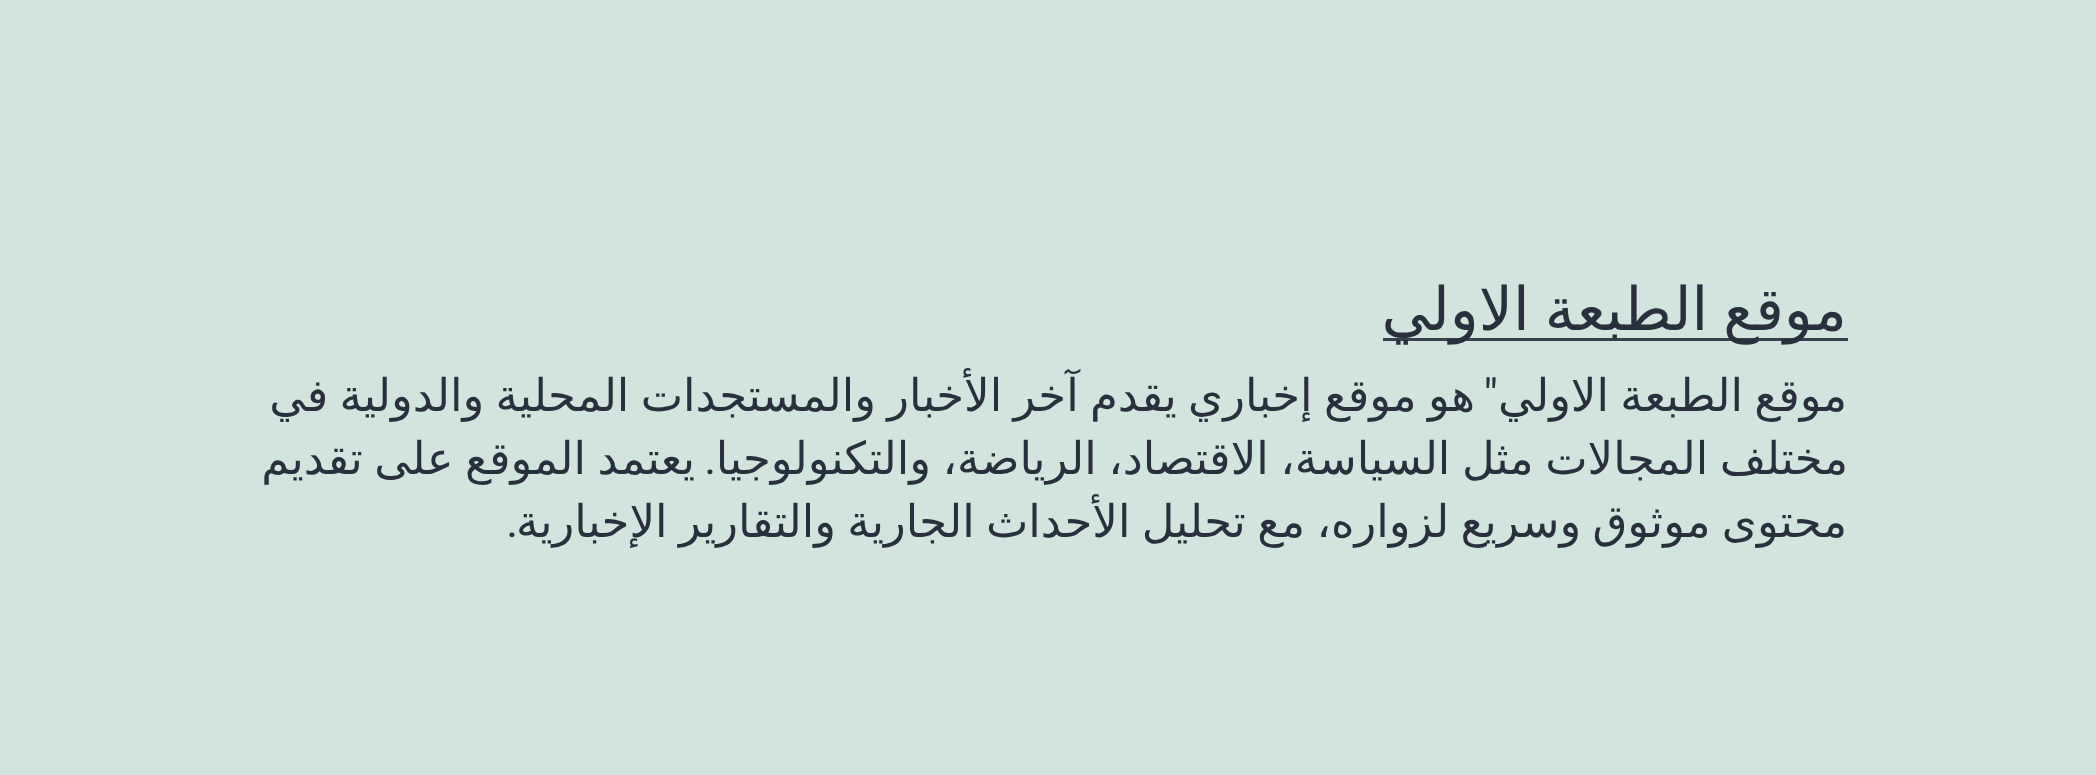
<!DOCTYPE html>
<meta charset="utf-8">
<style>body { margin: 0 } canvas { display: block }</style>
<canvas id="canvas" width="2096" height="775"></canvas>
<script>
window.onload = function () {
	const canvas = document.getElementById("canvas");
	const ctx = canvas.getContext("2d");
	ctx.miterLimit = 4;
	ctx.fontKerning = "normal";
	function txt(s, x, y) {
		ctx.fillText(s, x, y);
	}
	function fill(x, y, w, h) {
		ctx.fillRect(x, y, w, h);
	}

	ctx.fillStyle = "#D1E4DD";
	fill(0, 0, 2096, 775);
	ctx.fillStyle = "#39414D";
	fill(1383, 338, 465, 3);
	ctx.wordSpacing = "-4px";
	ctx.direction = "rtl";
	ctx.font = "60px DejaVu Sans";
	ctx.fillStyle = "#28303D";
	txt("موقع الطبعة الاولي", 1847, 330);
	ctx.wordSpacing = "-3px";
	ctx.font = "45px DejaVu Sans";
	txt("موقع الطبعة الاولي", 1847, 411);
	ctx.wordSpacing = "0px";
	ctx.font = "45px Roboto";
	txt("\"", 1498, 411);
	ctx.wordSpacing = "-3px";
	ctx.font = "45px DejaVu Sans";
	txt("هو موقع إخباري يقدم آخر الأخبار والمستجدات المحلية والدولية في", 1475, 411);
	ctx.wordSpacing = "-2.75px";
	txt("مختلف المجالات مثل السياسة، الاقتصاد، الرياضة، والتكنولوجيا", 1848, 474);
	ctx.wordSpacing = "0px";
	ctx.font = "45px Roboto";
	txt(".", 716, 474);
	ctx.wordSpacing = "-2.75px";
	ctx.font = "45px DejaVu Sans";
	txt("يعتمد الموقع على تقديم", 695, 474);
	ctx.wordSpacing = "-3px";
	txt("محتوى موثوق وسريع لزواره، مع تحليل الأحداث الجارية والتقارير الإخبارية", 1847, 537);
	ctx.wordSpacing = "0px";
	ctx.font = "45px Roboto";
	txt(".", 518, 537);
};
</script>
